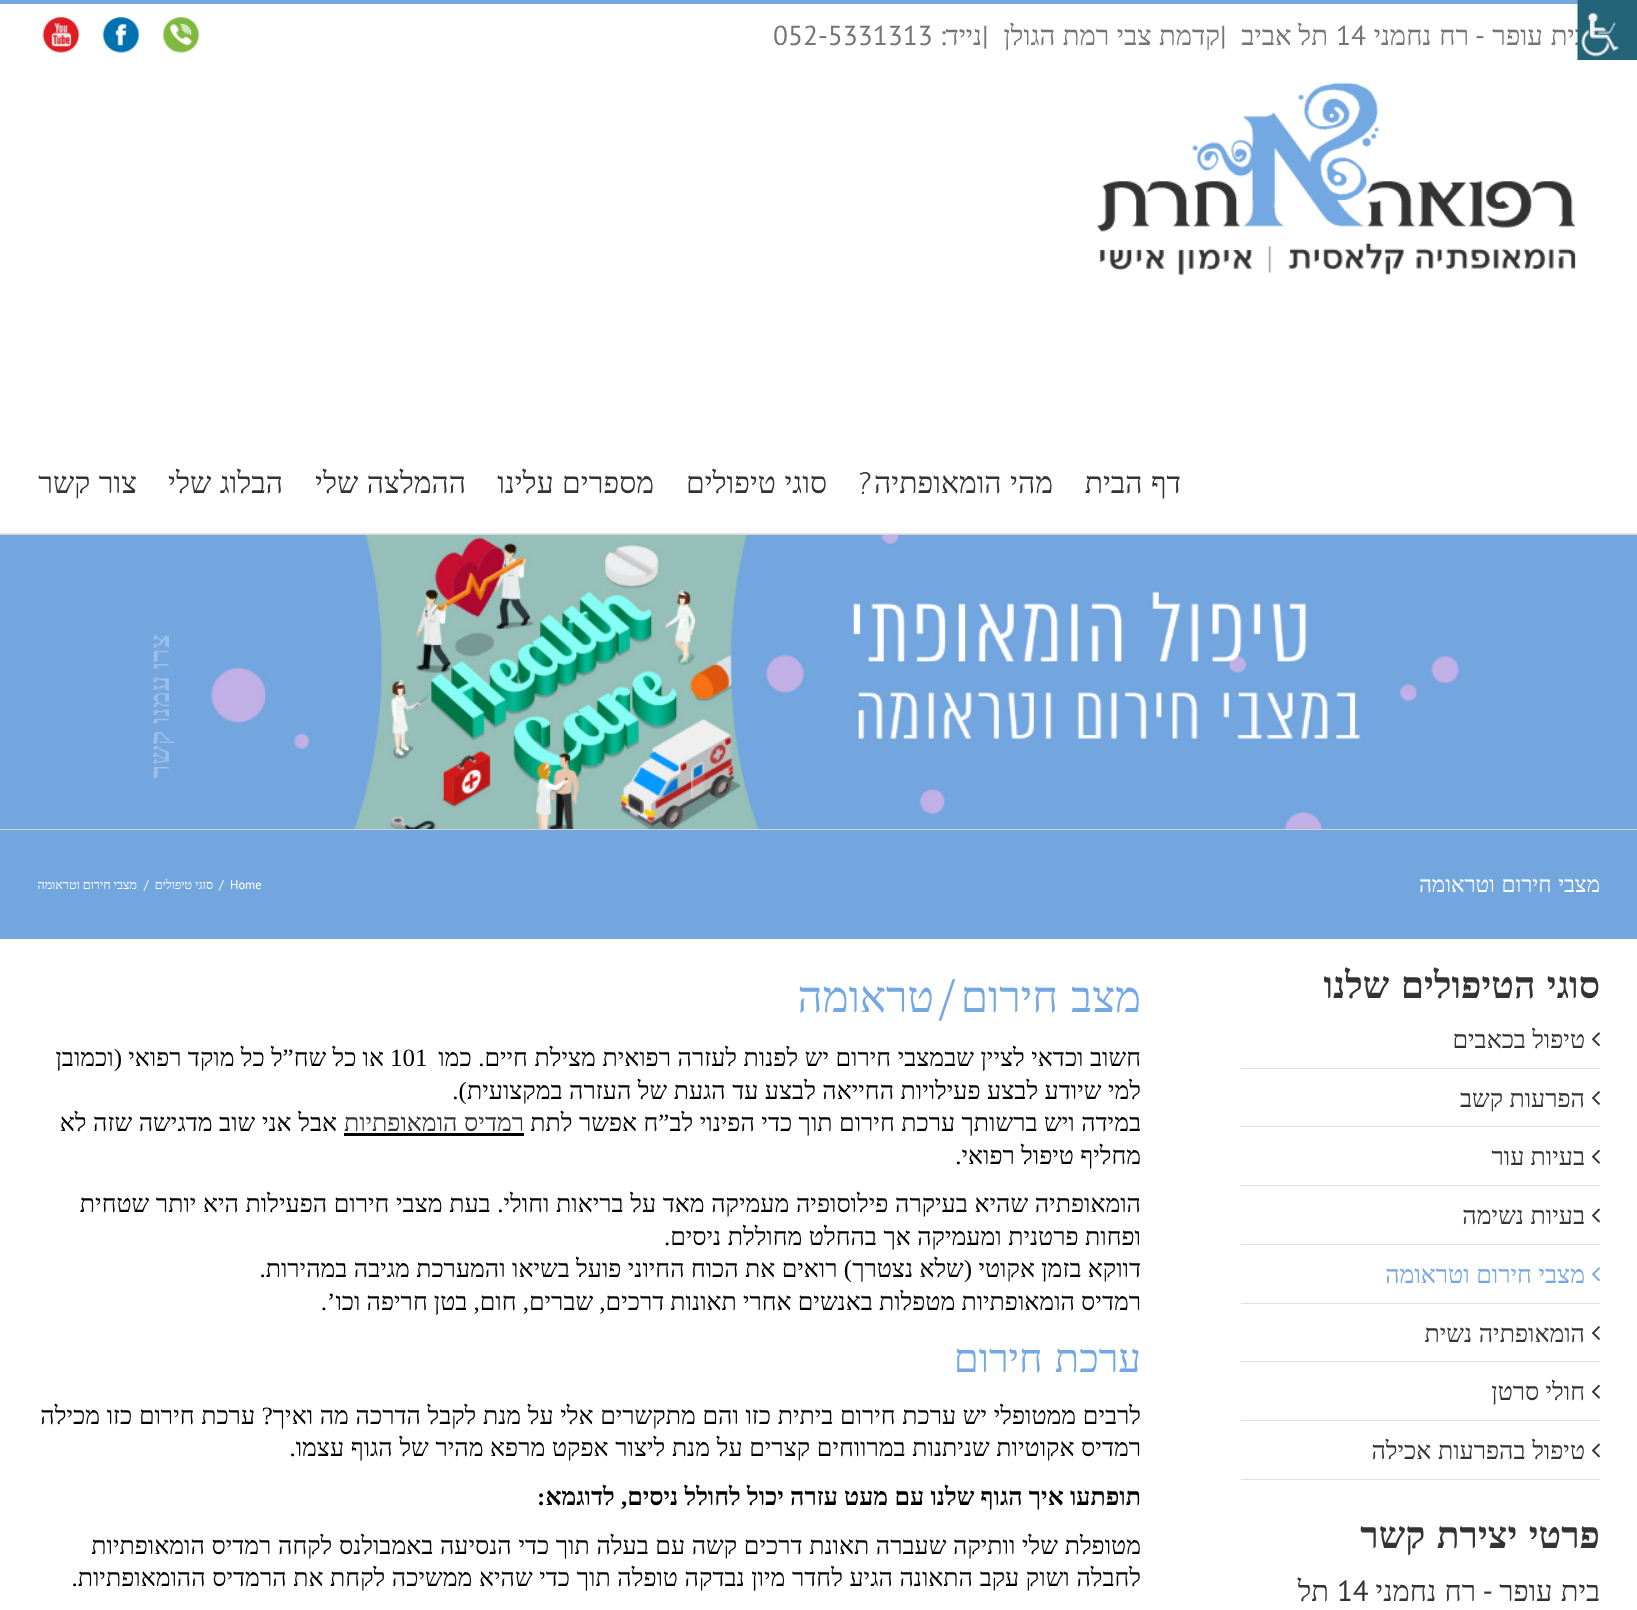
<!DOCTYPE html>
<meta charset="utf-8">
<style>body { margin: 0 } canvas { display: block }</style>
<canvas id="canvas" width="1637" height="1610"></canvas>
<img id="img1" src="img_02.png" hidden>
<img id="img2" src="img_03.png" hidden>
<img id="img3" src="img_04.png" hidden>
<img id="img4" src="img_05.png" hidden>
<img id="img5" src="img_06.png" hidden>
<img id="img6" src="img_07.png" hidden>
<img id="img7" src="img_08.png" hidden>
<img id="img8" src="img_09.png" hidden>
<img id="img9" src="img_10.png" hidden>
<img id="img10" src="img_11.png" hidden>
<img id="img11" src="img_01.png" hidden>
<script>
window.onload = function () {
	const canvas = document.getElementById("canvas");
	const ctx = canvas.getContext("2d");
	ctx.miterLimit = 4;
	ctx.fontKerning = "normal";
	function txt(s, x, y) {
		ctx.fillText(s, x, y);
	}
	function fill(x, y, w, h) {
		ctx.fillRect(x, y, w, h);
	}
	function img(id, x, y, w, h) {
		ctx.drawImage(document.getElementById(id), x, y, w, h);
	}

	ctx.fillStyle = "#FFFFFF";
	fill(0, 0, 1637, 1610);
	ctx.fillStyle = "#73A8E2";
	fill(0, 0, 1578, 4);
	img("img1", 162, 17, 38, 36);
	img("img2", 102, 17, 38, 36);
	img("img3", 42, 17, 38, 36);
	ctx.fillStyle = "#E5E5E5";
	fill(0, 533, 1637, 1);
	img("img4", 1097, 82, 479, 194);
	ctx.fillStyle = "#D2D3D4";
	fill(0, 534, 1637, 1);
	fill(0, 829, 1637, 1);
	img("img5", 0, 535, 1637, 294);
	ctx.fillStyle = "#73A6DF";
	fill(0, 830, 1637, 109);
	ctx.fillStyle = "#E0DEDE";
	fill(1241, 1068, 359, 1);
	img("img6", 1591, 1032, 9, 15);
	fill(1241, 1126, 359, 1);
	img("img7", 1592, 1091, 8, 14);
	fill(1241, 1185, 359, 1);
	img("img8", 1591, 1149, 9, 15);
	fill(1241, 1244, 359, 1);
	img("img9", 1591, 1208, 9, 15);
	fill(1241, 1303, 359, 1);
	img("img10", 1591, 1267, 9, 15);
	fill(1241, 1361, 359, 1);
	img("img7", 1592, 1326, 8, 14);
	fill(1241, 1420, 359, 1);
	img("img8", 1591, 1384, 9, 15);
	fill(1241, 1479, 359, 1);
	img("img9", 1591, 1443, 9, 15);
	ctx.fillStyle = "#000000";
	fill(344, 1133, 180, 3);
	ctx.wordSpacing = "1px";
	ctx.direction = "rtl";
	ctx.font = "27.5px Liberation Serif";
	ctx.fillStyle = "#747474";
	txt("בית עופר", 1588, 45);
	img("img11", 1577, 0, 60, 60);
	ctx.wordSpacing = "0px";
	ctx.font = "27.5px PT Sans";
	txt("-", 1485, 45);
	ctx.wordSpacing = "1px";
	ctx.font = "27.5px Liberation Serif";
	txt("רח נחמני", 1469, 45);
	ctx.wordSpacing = "0px";
	ctx.direction = "ltr";
	ctx.font = "27.5px PT Sans";
	txt("14", 1336, 45);
	ctx.direction = "rtl";
	ctx.font = "27.5px Liberation Serif";
	txt("תל אביב", 1328, 45);
	ctx.direction = "ltr";
	ctx.font = "27.5px PT Sans";
	txt("|", 1220, 45);
	ctx.wordSpacing = "0.5px";
	ctx.direction = "rtl";
	ctx.font = "27.5px Liberation Serif";
	txt("קדמת צבי רמת הגולן", 1220, 45);
	ctx.wordSpacing = "0px";
	ctx.direction = "ltr";
	ctx.font = "27.5px PT Sans";
	txt("|", 982, 45);
	ctx.direction = "rtl";
	ctx.font = "27.5px Liberation Serif";
	txt("נייד", 982, 45);
	ctx.font = "27.5px PT Sans";
	txt(":", 946, 45);
	ctx.direction = "ltr";
	txt("052-5331313", 773, 45);
	ctx.wordSpacing = "1px";
	ctx.direction = "rtl";
	ctx.font = "30px Liberation Serif";
	ctx.fillStyle = "#333333";
	txt("דף הבית", 1181, 493);
	txt("מהי הומאופתיה", 1053, 493);
	ctx.wordSpacing = "0px";
	ctx.font = "30px Antic Slab";
	txt("?", 873, 493);
	ctx.wordSpacing = "1px";
	ctx.font = "30px Liberation Serif";
	txt("סוגי טיפולים", 827, 493);
	txt("מספרים עלינו", 654, 493);
	txt("ההמלצה שלי", 466, 493);
	txt("הבלוג שלי", 283, 493);
	txt("צור קשר", 137, 493);
	ctx.font = "22.5px Liberation Serif";
	ctx.fillStyle = "#FFFFFF";
	txt("מצבי חירום וטראומה", 1600, 892);
	ctx.wordSpacing = "0px";
	ctx.direction = "ltr";
	ctx.font = "12.5px PT Sans";
	txt("Home", 230, 889);
	txt("/", 219, 889);
	ctx.direction = "rtl";
	ctx.font = "12.5px Liberation Serif";
	txt("סוגי טיפולים", 213, 889);
	ctx.direction = "ltr";
	ctx.font = "12.5px PT Sans";
	txt("/", 144, 889);
	ctx.direction = "rtl";
	ctx.font = "12.5px Liberation Serif";
	txt("מצבי חירום וטראומה", 137, 889);
	ctx.wordSpacing = "2px";
	ctx.font = "bold 37.5px Liberation Serif";
	ctx.fillStyle = "#333333";
	txt("סוגי הטיפולים שלנו", 1600, 998);
	ctx.wordSpacing = "0px";
	ctx.font = "25px Liberation Serif";
	txt("טיפול בכאבים", 1585, 1048);
	txt("הפרעות קשב", 1585, 1107);
	txt("בעיות עור", 1585, 1165);
	ctx.wordSpacing = "0.4px";
	txt("בעיות נשימה", 1585, 1224);
	ctx.fillStyle = "#73A8E2";
	txt("מצבי חירום וטראומה", 1585, 1283);
	ctx.fillStyle = "#333333";
	txt("הומאופתיה נשית", 1585, 1342);
	ctx.wordSpacing = "0px";
	txt("חולי סרטן", 1585, 1400);
	ctx.wordSpacing = "0.4px";
	txt("טיפול בהפרעות אכילה", 1585, 1459);
	ctx.wordSpacing = "2px";
	ctx.font = "bold 37.5px Liberation Serif";
	txt("פרטי יצירת קשר", 1600, 1548);
	ctx.wordSpacing = "1px";
	ctx.font = "29px Liberation Serif";
	txt("בית עופר", 1600, 1601);
	ctx.wordSpacing = "0px";
	ctx.font = "29px PT Sans";
	txt("-", 1493, 1601);
	ctx.wordSpacing = "1px";
	ctx.font = "29px Liberation Serif";
	txt("רח נחמני", 1476, 1601);
	ctx.wordSpacing = "0px";
	ctx.direction = "ltr";
	ctx.font = "29px PT Sans";
	txt("14", 1337, 1601);
	ctx.direction = "rtl";
	ctx.font = "29px Liberation Serif";
	txt("תל", 1329, 1601);
	ctx.wordSpacing = "2px";
	ctx.font = "43.75px Liberation Serif";
	ctx.fillStyle = "#73A8E2";
	txt("מצב חירום", 1141, 1012);
	ctx.wordSpacing = "0px";
	ctx.font = "43.75px Antic Slab";
	txt("/", 960, 1012);
	ctx.font = "43.75px Liberation Serif";
	txt("טראומה", 934, 1012);
	ctx.wordSpacing = "0.3px";
	ctx.font = "25px Liberation Serif";
	ctx.fillStyle = "#000000";
	txt("חשוב וכדאי לציין שבמצבי חירום יש לפנות לעזרה רפואית מצילת חיים. כמו", 1141, 1066);
	ctx.wordSpacing = "0px";
	ctx.direction = "ltr";
	txt("101", 390, 1066);
	ctx.direction = "rtl";
	txt("או כל שח”ל כל מוקד רפואי (וכמובן", 384, 1066);
	ctx.wordSpacing = "0.25px";
	txt("למי שיודע לבצע פעילויות החייאה לבצע עד הגעת של העזרה במקצועית).", 1141, 1099);
	txt("במידה ויש ברשותך ערכת חירום תוך כדי הפינוי לב”ח אפשר לתת", 1141, 1131);
	ctx.wordSpacing = "0.4px";
	ctx.fillStyle = "#333333";
	txt("רמדיס הומאופתיות", 524, 1131);
	ctx.fillStyle = "#000000";
	txt("אבל אני שוב מדגישה שזה לא", 337, 1131);
	ctx.wordSpacing = "0px";
	txt("מחליף טיפול רפואי.", 1141, 1164);
	ctx.wordSpacing = "0.4px";
	txt("הומאופתיה שהיא בעיקרה פילוסופיה מעמיקה מאד על בריאות וחולי. בעת מצבי חירום הפעילות היא יותר שטחית", 1141, 1212);
	ctx.wordSpacing = "0.25px";
	txt("ופחות פרטנית ומעמיקה אך בהחלט מחוללת ניסים.", 1141, 1245);
	ctx.wordSpacing = "0.1px";
	txt("דווקא בזמן אקוטי (שלא נצטרך) רואים את הכוח החיוני פועל בשיאו והמערכת מגיבה במהירות.", 1141, 1277);
	ctx.wordSpacing = "-0.1px";
	txt("רמדיס הומאופתיות מטפלות באנשים אחרי תאונות דרכים, שברים, חום, בטן חריפה וכו’.", 1141, 1310);
	ctx.wordSpacing = "2px";
	ctx.font = "40px Liberation Serif";
	ctx.fillStyle = "#73A8E2";
	txt("ערכת חירום", 1141, 1372);
	ctx.wordSpacing = "0.4px";
	ctx.font = "25px Liberation Serif";
	ctx.fillStyle = "#000000";
	txt("לרבים ממטופלי יש ערכת חירום ביתית כזו והם מתקשרים אלי על מנת לקבל הדרכה מה ואיך? ערכת חירום כזו מכילה", 1141, 1424);
	txt("רמדיס אקוטיות שניתנות במרווחים קצרים על מנת ליצור אפקט מרפא מהיר של הגוף עצמו.", 1141, 1456);
	ctx.wordSpacing = "0px";
	ctx.font = "bold 25px Liberation Serif";
	txt("תופתעו איך הגוף שלנו עם מעט עזרה יכול לחולל ניסים, לדוגמא:", 1141, 1505);
	ctx.wordSpacing = "0.4px";
	ctx.font = "25px Liberation Serif";
	txt("מטופלת שלי וותיקה שעברה תאונת דרכים קשה עם בעלה תוך כדי הנסיעה באמבולנס לקחה רמדיס הומאופתיות", 1141, 1554);
	txt("לחבלה ושוק עקב התאונה הגיע לחדר מיון נבדקה טופלה תוך כדי שהיא ממשיכה לקחת את הרמדיס ההומאופתיות.", 1141, 1586);
	ctx.wordSpacing = "0px";
	ctx.font = "bold 27.5px Liberation Serif";
	ctx.fillStyle = "#99BEE7";
	ctx.save();
	ctx.translate(169, 634);
	ctx.rotate(-90 * Math.PI / 180);
	ctx.fillText("צרו עמנו קשר", 0, 0);
	ctx.restore();
};
</script>
